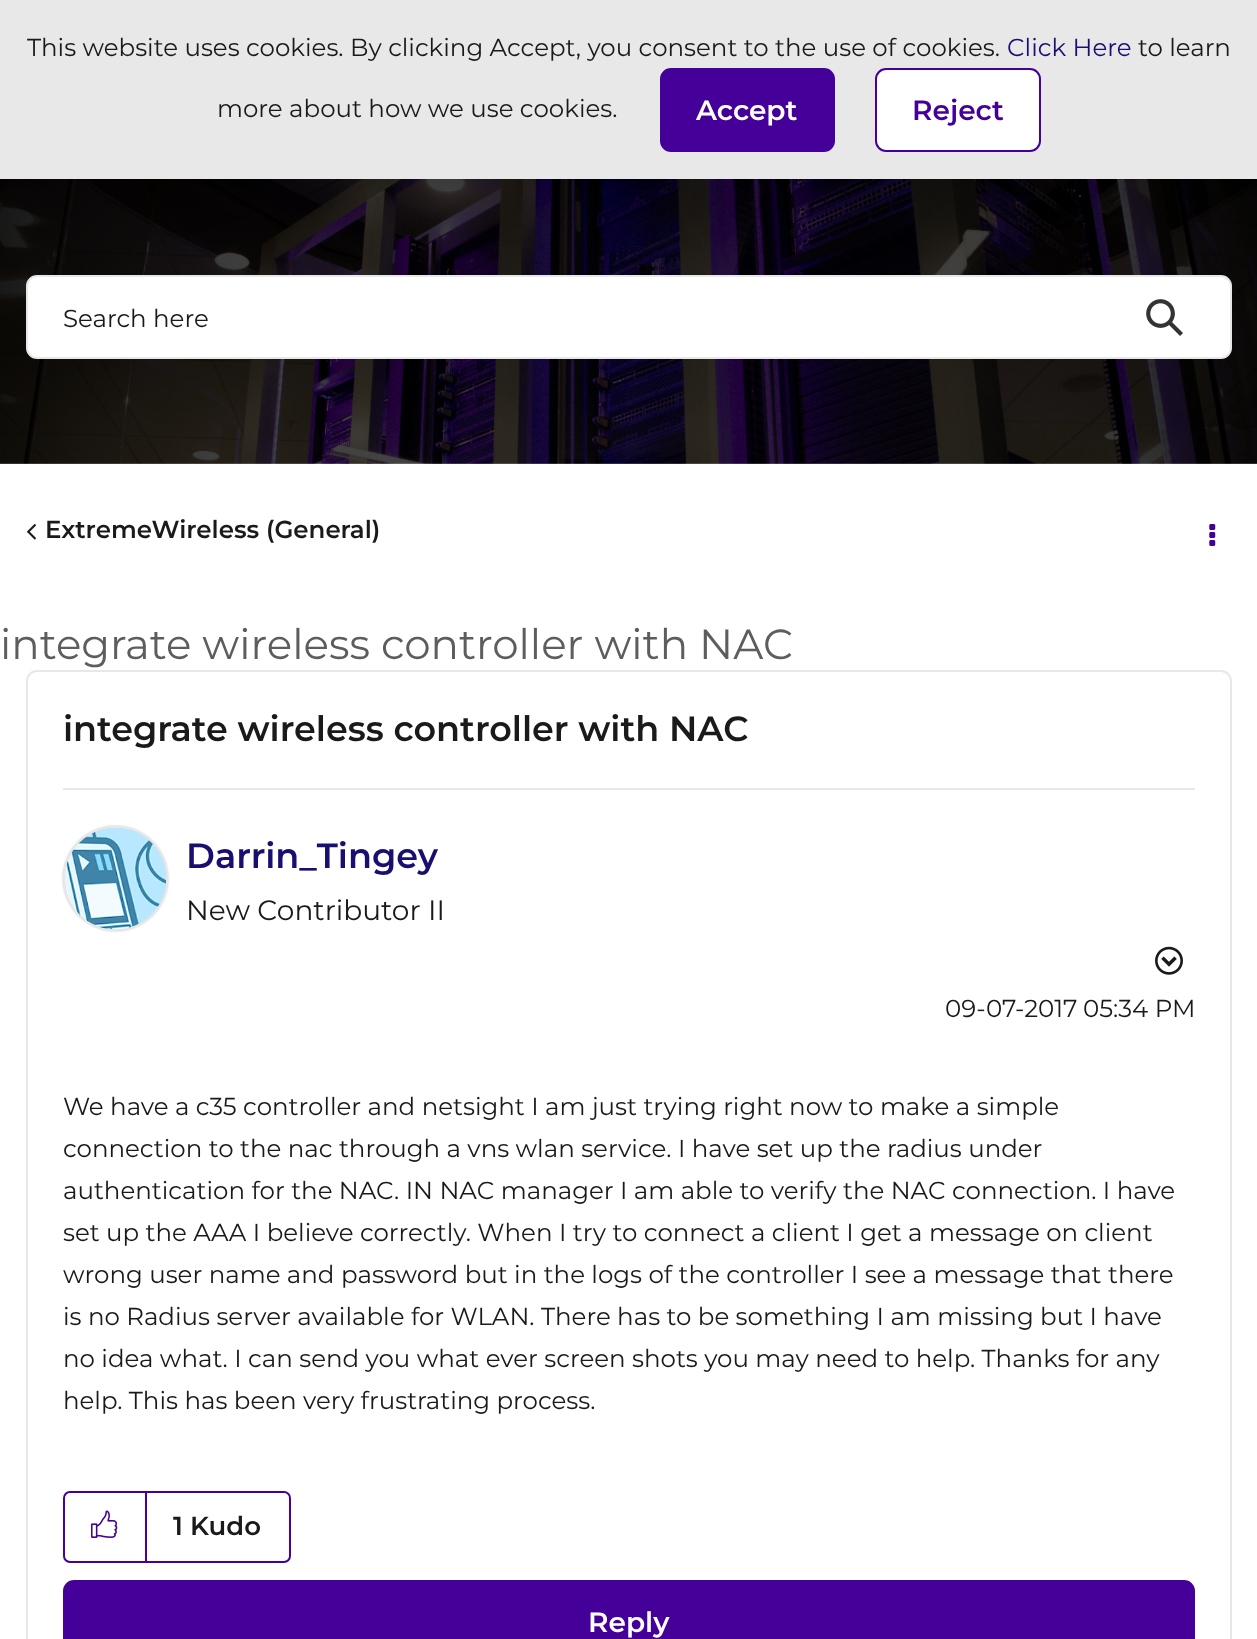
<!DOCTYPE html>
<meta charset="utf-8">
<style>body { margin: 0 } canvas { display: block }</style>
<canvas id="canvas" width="1257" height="1639"></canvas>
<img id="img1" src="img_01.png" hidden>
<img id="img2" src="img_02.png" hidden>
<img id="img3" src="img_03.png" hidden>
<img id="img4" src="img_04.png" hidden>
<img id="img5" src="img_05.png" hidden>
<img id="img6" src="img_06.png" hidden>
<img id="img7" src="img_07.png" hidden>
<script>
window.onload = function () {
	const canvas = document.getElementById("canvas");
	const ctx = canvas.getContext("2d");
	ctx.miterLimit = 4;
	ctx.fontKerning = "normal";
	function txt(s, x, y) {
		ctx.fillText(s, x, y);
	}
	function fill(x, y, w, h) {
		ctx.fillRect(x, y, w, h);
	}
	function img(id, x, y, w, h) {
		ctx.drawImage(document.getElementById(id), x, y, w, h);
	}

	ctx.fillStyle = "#FFFFFF";
	fill(0, 0, 1257, 1639);
	ctx.fillStyle = "#E8E8E8";
	fill(0, 0, 1257, 179);
	ctx.fillStyle = "#440099";
	ctx.beginPath();
	ctx.roundRect(661, 69, 173, 82, 10);
	ctx.fill();
	ctx.strokeStyle = "#440099";
	ctx.lineWidth = 2;
	ctx.stroke();
	ctx.fillStyle = "#FFFFFF";
	ctx.beginPath();
	ctx.roundRect(876, 69, 164, 82, 10);
	ctx.fill();
	ctx.stroke();
	img("img1", 0, 179, 1257, 285);
	ctx.beginPath();
	ctx.roundRect(27, 276, 1204, 82, 10);
	ctx.fill();
	ctx.strokeStyle = "#E8E8E8";
	ctx.stroke();
	img("img2", 1146, 299, 37, 37);
	img("img3", 27, 524, 9, 16);
	img("img4", 1209, 524, 7, 22);
	ctx.beginPath();
	ctx.roundRect(27, 671, 1204, 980, 10);
	ctx.stroke();
	ctx.fillStyle = "#E8E8E8";
	fill(63, 788, 1132, 2);
	ctx.fillStyle = "#C4C4C4";
	ctx.filter = "blur(1px)";
	ctx.beginPath();
	ctx.roundRect(63, 826, 105, 105, 52.5);
	ctx.fill();
	ctx.filter = "none";
	ctx.beginPath();
	ctx.arc(115.5, 878.5, 51.5, 0, Math.PI * 2);
	ctx.stroke();
	img("img5", 65, 828, 102, 101);
	img("img6", 1155, 946, 28, 29);
	ctx.beginPath();
	ctx.roundRect(64, 1492, 226, 70, 6);
	ctx.strokeStyle = "#440099";
	ctx.stroke();
	ctx.fillStyle = "#440099";
	fill(145, 1493, 2, 68);
	img("img7", 91, 1510, 27, 28);
	ctx.beginPath();
	ctx.roundRect(64, 1581, 1130, 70, 10);
	ctx.fill();
	ctx.stroke();
	ctx.font = "100 24.5px Montserrat";
	ctx.fillStyle = "#1A1A1A";
	txt("This website uses cookies. By clicking Accept, you consent to the use of cookies.", 27, 56);
	ctx.fillStyle = "#190F71";
	txt("Click Here", 1007, 56);
	ctx.fillStyle = "#1A1A1A";
	txt("to learn", 1138, 56);
	txt("more about how we use cookies.", 217, 117);
	ctx.font = "100 28px 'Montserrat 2'";
	ctx.fillStyle = "#FFFFFF";
	txt("Accept", 696, 120);
	ctx.fillStyle = "#440099";
	txt("Reject", 912, 120);
	ctx.font = "100 24.5px Montserrat";
	ctx.fillStyle = "#1A1A1A";
	txt("Search here", 63, 327);
	ctx.font = "100 24.5px 'Montserrat 2'";
	txt("ExtremeWireless (General)", 45, 538);
	ctx.font = "100 42px Montserrat";
	ctx.fillStyle = "#5D5D5D";
	txt("integrate wireless controller with NAC", 0, 659);
	ctx.font = "100 35px 'Montserrat 2'";
	ctx.fillStyle = "#1A1A1A";
	txt("integrate wireless controller with NAC", 63, 741);
	ctx.fillStyle = "#190F71";
	txt("Darrin_Tingey", 186, 868);
	ctx.font = "100 28px Montserrat";
	ctx.fillStyle = "#1A1A1A";
	txt("New Contributor II", 186, 920);
	ctx.font = "100 24.5px Montserrat";
	txt("09-07-2017", 945, 1017);
	txt("05:34 PM", 1083, 1017);
	txt("We have a c35 controller and netsight I am just trying right now to make a simple", 63, 1115);
	txt("connection to the nac through a vns wlan service. I have set up the radius under", 63, 1157);
	txt("authentication for the NAC. IN NAC manager I am able to verify the NAC connection. I have", 63, 1199);
	txt("set up the AAA I believe correctly. When I try to connect a client I get a message on client", 63, 1241);
	txt("wrong user name and password but in the logs of the controller I see a message that there", 63, 1283);
	txt("is no Radius server available for WLAN. There has to be something I am missing but I have", 63, 1325);
	txt("no idea what. I can send you what ever screen shots you may need to help. Thanks for any", 63, 1367);
	txt("help. This has been very frustrating process.", 63, 1409);
	ctx.font = "100 26px 'Montserrat 2'";
	txt("1 Kudo", 173, 1535);
	ctx.font = "100 28px 'Montserrat 2'";
	ctx.fillStyle = "#FFFFFF";
	txt("Reply", 588, 1632);
};
</script>
